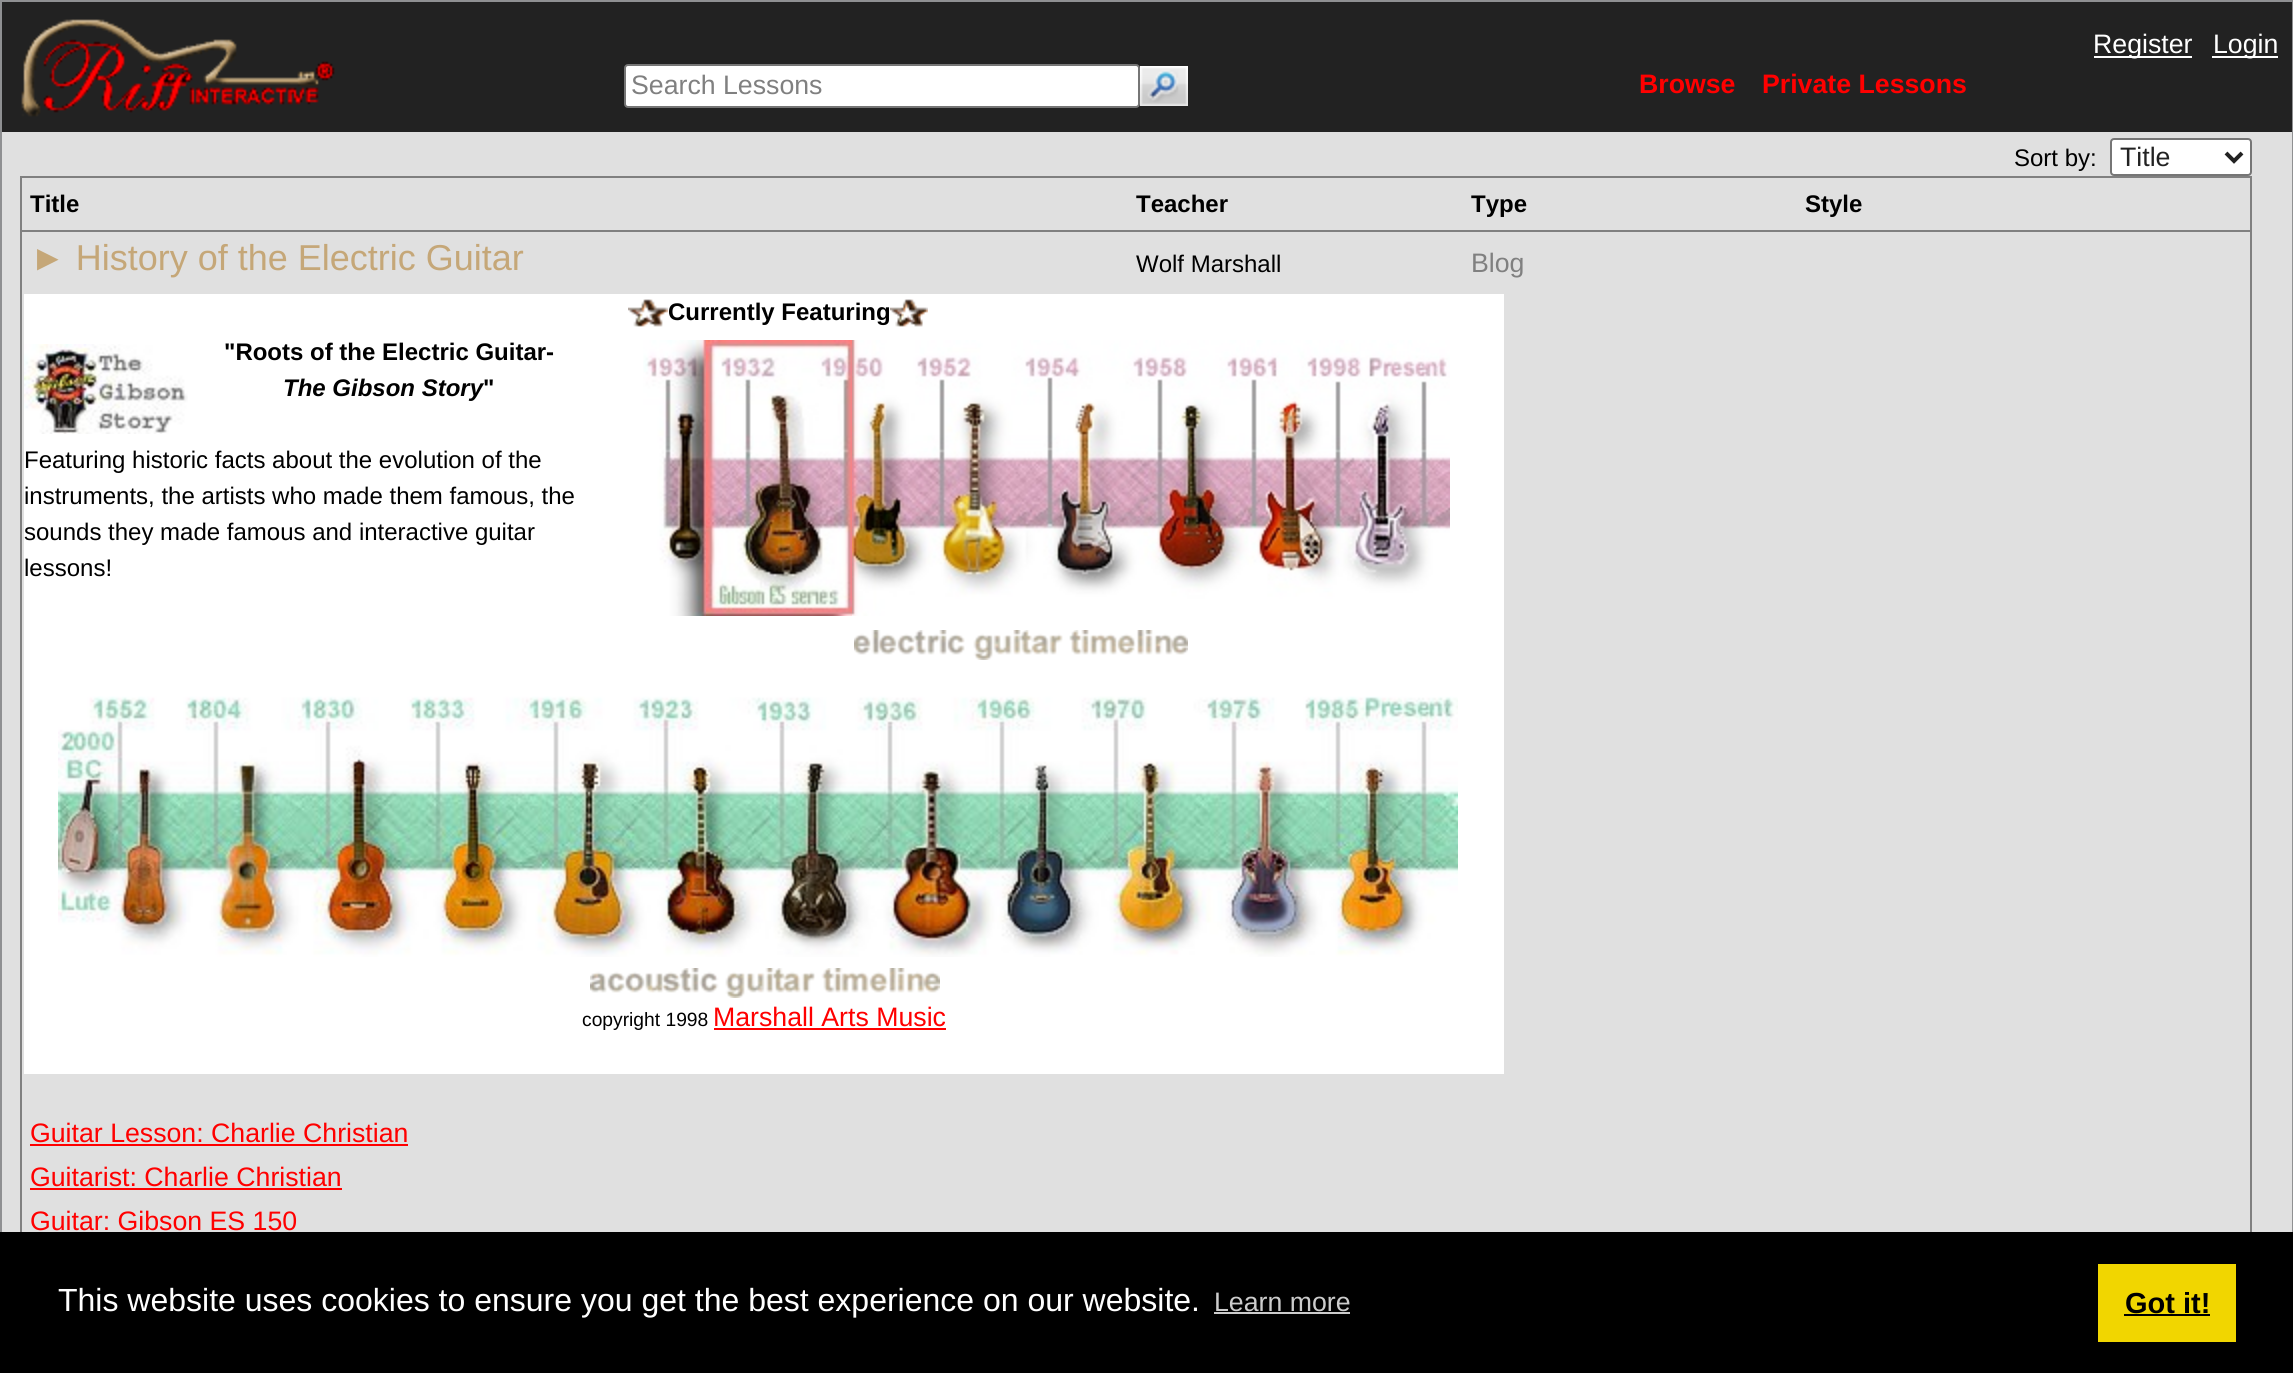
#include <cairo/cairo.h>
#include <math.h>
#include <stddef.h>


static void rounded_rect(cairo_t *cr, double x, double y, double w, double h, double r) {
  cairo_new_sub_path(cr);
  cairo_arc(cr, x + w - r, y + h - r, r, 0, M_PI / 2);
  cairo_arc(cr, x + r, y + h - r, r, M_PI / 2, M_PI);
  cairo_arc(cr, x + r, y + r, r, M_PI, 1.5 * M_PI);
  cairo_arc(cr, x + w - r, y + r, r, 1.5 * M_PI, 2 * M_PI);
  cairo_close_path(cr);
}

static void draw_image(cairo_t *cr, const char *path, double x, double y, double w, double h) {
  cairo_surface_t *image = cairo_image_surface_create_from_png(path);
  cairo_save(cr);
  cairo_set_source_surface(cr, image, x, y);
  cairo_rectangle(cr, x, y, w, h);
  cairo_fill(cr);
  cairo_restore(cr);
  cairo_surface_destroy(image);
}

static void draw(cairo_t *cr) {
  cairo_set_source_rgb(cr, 224 / 255.0, 224 / 255.0, 224 / 255.0);
  cairo_paint(cr);
  cairo_rectangle(cr, 1, 1, 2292, 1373);
  cairo_set_source_rgb(cr, 143 / 255.0, 144 / 255.0, 146 / 255.0);
  cairo_stroke(cr);
  cairo_set_source_rgb(cr, 34 / 255.0, 34 / 255.0, 34 / 255.0);
  cairo_rectangle(cr, 2, 2, 2290, 130);
  cairo_fill(cr);
  draw_image(cr, "images/1.png", 21, 19, 314, 98);
  cairo_set_source_rgb(cr, 1, 1, 1);
  cairo_rectangle(cr, 2094, 56, 98, 2);
  cairo_fill(cr);
  cairo_rectangle(cr, 2212, 56, 66, 2);
  cairo_fill(cr);
  rounded_rect(cr, 625, 65, 514, 42, 3);
  cairo_fill_preserve(cr);
  cairo_set_source_rgb(cr, 118 / 255.0, 118 / 255.0, 118 / 255.0);
  cairo_stroke(cr);
  draw_image(cr, "images/2.png", 1140, 66, 48, 40);
  cairo_set_source_rgb(cr, 1, 1, 1);
  rounded_rect(cr, 2111, 139, 140, 36, 3);
  cairo_fill_preserve(cr);
  cairo_set_source_rgb(cr, 118 / 255.0, 118 / 255.0, 118 / 255.0);
  cairo_stroke(cr);
  cairo_new_path(cr);
  cairo_move_to(cr, 2226, 153);
  cairo_line_to(cr, 2234, 161);
  cairo_line_to(cr, 2242, 153);
  cairo_set_source_rgb(cr, 34 / 255.0, 34 / 255.0, 34 / 255.0);
  cairo_set_line_width(cr, 4);
  cairo_stroke(cr);
  cairo_set_source_rgb(cr, 128 / 255.0, 128 / 255.0, 128 / 255.0);
  cairo_rectangle(cr, 20, 176, 2232, 2);
  cairo_fill(cr);
  cairo_rectangle(cr, 2250, 176, 2, 1056);
  cairo_fill(cr);
  cairo_rectangle(cr, 20, 176, 2, 1056);
  cairo_fill(cr);
  cairo_rectangle(cr, 20, 230, 2232, 2);
  cairo_fill(cr);
  cairo_set_source_rgb(cr, 1, 1, 1);
  cairo_rectangle(cr, 24, 294, 1480, 780);
  cairo_fill(cr);
  draw_image(cr, "images/3.png", 628, 299, 40, 28);
  draw_image(cr, "images/4.png", 890, 299, 38, 28);
  draw_image(cr, "images/5.png", 24, 344, 164, 90);
  draw_image(cr, "images/6.png", 643, 340, 63, 276);
  draw_image(cr, "images/7.png", 706, 340, 146, 276);
  draw_image(cr, "images/8.png", 852, 340, 598, 276);
  draw_image(cr, "images/9.png", 854, 630, 334, 30);
  draw_image(cr, "images/10.png", 58, 696, 1400, 261);
  draw_image(cr, "images/11.png", 590, 968, 350, 30);
  cairo_set_source_rgb(cr, 1, 0, 0);
  cairo_rectangle(cr, 714, 1028, 232, 2);
  cairo_fill(cr);
  cairo_rectangle(cr, 30, 1144, 378, 2);
  cairo_fill(cr);
  cairo_rectangle(cr, 30, 1188, 312, 2);
  cairo_fill(cr);
  cairo_set_source_rgb(cr, 0, 0, 0);
  cairo_rectangle(cr, 0, 1232, 2293, 141);
  cairo_fill(cr);
  cairo_set_source_rgb(cr, 204 / 255.0, 204 / 255.0, 204 / 255.0);
  cairo_rectangle(cr, 1214, 1312, 136, 2);
  cairo_fill(cr);
  cairo_set_source_rgb(cr, 241 / 255.0, 214 / 255.0, 0);
  cairo_rectangle(cr, 2098, 1264, 138, 78);
  cairo_fill(cr);
  cairo_set_source_rgb(cr, 0, 0, 0);
  cairo_rectangle(cr, 2124, 1314, 86, 2);
  cairo_fill(cr);
  cairo_select_font_face(cr, "Liberation Sans", CAIRO_FONT_SLANT_NORMAL, CAIRO_FONT_WEIGHT_NORMAL);
  cairo_set_font_size(cr, 26.7);
  cairo_set_source_rgb(cr, 1, 1, 1);
  cairo_move_to(cr, 2093, 53);
  cairo_show_text(cr, "Register");
  cairo_move_to(cr, 2213, 53);
  cairo_show_text(cr, "Login");
  cairo_set_source_rgb(cr, 128 / 255.0, 128 / 255.0, 128 / 255.0);
  cairo_move_to(cr, 631, 94);
  cairo_show_text(cr, "Search Lessons");
  cairo_select_font_face(cr, "Liberation Sans", CAIRO_FONT_SLANT_NORMAL, CAIRO_FONT_WEIGHT_BOLD);
  cairo_set_source_rgb(cr, 1, 0, 0);
  cairo_move_to(cr, 1639, 93);
  cairo_show_text(cr, "Browse");
  cairo_move_to(cr, 1762, 93);
  cairo_show_text(cr, "Private Lessons");
  cairo_select_font_face(cr, "Liberation Sans", CAIRO_FONT_SLANT_NORMAL, CAIRO_FONT_WEIGHT_NORMAL);
  cairo_set_font_size(cr, 24);
  cairo_set_source_rgb(cr, 0, 0, 0);
  cairo_move_to(cr, 2014, 166);
  cairo_show_text(cr, "Sort by:");
  cairo_set_font_size(cr, 26.7);
  cairo_set_source_rgb(cr, 34 / 255.0, 34 / 255.0, 34 / 255.0);
  cairo_move_to(cr, 2120, 166);
  cairo_show_text(cr, "Title");
  cairo_select_font_face(cr, "Liberation Sans", CAIRO_FONT_SLANT_NORMAL, CAIRO_FONT_WEIGHT_BOLD);
  cairo_set_font_size(cr, 24);
  cairo_set_source_rgb(cr, 0, 0, 0);
  cairo_move_to(cr, 30, 212);
  cairo_show_text(cr, "Title");
  cairo_move_to(cr, 1136, 212);
  cairo_show_text(cr, "Teacher");
  cairo_move_to(cr, 1471, 212);
  cairo_show_text(cr, "Type");
  cairo_move_to(cr, 1805, 212);
  cairo_show_text(cr, "Style");
  cairo_select_font_face(cr, "Liberation Sans", CAIRO_FONT_SLANT_NORMAL, CAIRO_FONT_WEIGHT_NORMAL);
  cairo_set_font_size(cr, 36);
  cairo_set_source_rgb(cr, 197 / 255.0, 167 / 255.0, 120 / 255.0);
  cairo_move_to(cr, 30, 270);
  cairo_show_text(cr, "► History of the Electric Guitar");
  cairo_set_font_size(cr, 24);
  cairo_set_source_rgb(cr, 0, 0, 0);
  cairo_move_to(cr, 1136, 272);
  cairo_show_text(cr, "Wolf Marshall");
  cairo_set_font_size(cr, 26.7);
  cairo_set_source_rgb(cr, 128 / 255.0, 128 / 255.0, 128 / 255.0);
  cairo_move_to(cr, 1471, 272);
  cairo_show_text(cr, "Blog");
  cairo_select_font_face(cr, "Liberation Sans", CAIRO_FONT_SLANT_NORMAL, CAIRO_FONT_WEIGHT_BOLD);
  cairo_set_font_size(cr, 24);
  cairo_set_source_rgb(cr, 0, 0, 0);
  cairo_move_to(cr, 668, 320);
  cairo_show_text(cr, "Currently Featuring");
  cairo_move_to(cr, 224, 360);
  cairo_show_text(cr, "\"Roots of the Electric Guitar-");
  cairo_select_font_face(cr, "Liberation Sans", CAIRO_FONT_SLANT_ITALIC, CAIRO_FONT_WEIGHT_BOLD);
  cairo_move_to(cr, 283, 396);
  cairo_show_text(cr, "The Gibson Story");
  cairo_select_font_face(cr, "Liberation Sans", CAIRO_FONT_SLANT_NORMAL, CAIRO_FONT_WEIGHT_BOLD);
  cairo_move_to(cr, 483, 396);
  cairo_show_text(cr, "\"");
  cairo_select_font_face(cr, "Liberation Sans", CAIRO_FONT_SLANT_NORMAL, CAIRO_FONT_WEIGHT_NORMAL);
  cairo_move_to(cr, 24, 468);
  cairo_show_text(cr, "Featuring historic facts about the evolution of the");
  cairo_move_to(cr, 24, 504);
  cairo_show_text(cr, "instruments, the artists who made them famous, the");
  cairo_move_to(cr, 24, 540);
  cairo_show_text(cr, "sounds they made famous and interactive guitar");
  cairo_move_to(cr, 24, 576);
  cairo_show_text(cr, "lessons!");
  cairo_set_font_size(cr, 19.25);
  cairo_move_to(cr, 582, 1026);
  cairo_show_text(cr, "copyright 1998");
  cairo_set_font_size(cr, 26.7);
  cairo_set_source_rgb(cr, 1, 0, 0);
  cairo_move_to(cr, 713, 1026);
  cairo_show_text(cr, "Marshall Arts Music");
  cairo_move_to(cr, 30, 1142);
  cairo_show_text(cr, "Guitar Lesson: Charlie Christian");
  cairo_move_to(cr, 30, 1186);
  cairo_show_text(cr, "Guitarist: Charlie Christian");
  cairo_move_to(cr, 30, 1230);
  cairo_show_text(cr, "Guitar: Gibson ES 150");
  cairo_set_font_size(cr, 32);
  cairo_set_source_rgb(cr, 1, 1, 1);
  cairo_move_to(cr, 58, 1311);
  cairo_show_text(cr, "This website uses cookies to ensure you get the best experience on our website.");
  cairo_set_font_size(cr, 26.7);
  cairo_set_source_rgb(cr, 204 / 255.0, 204 / 255.0, 204 / 255.0);
  cairo_move_to(cr, 1214, 1311);
  cairo_show_text(cr, "Learn more");
  cairo_select_font_face(cr, "Liberation Sans", CAIRO_FONT_SLANT_NORMAL, CAIRO_FONT_WEIGHT_BOLD);
  cairo_set_font_size(cr, 29);
  cairo_set_source_rgb(cr, 0, 0, 0);
  cairo_move_to(cr, 2125, 1313);
  cairo_show_text(cr, "Got it!");
}

int main(void) {
  cairo_surface_t *surface = cairo_image_surface_create(CAIRO_FORMAT_RGB24, 2293, 1373);
  cairo_t *cr = cairo_create(surface);
  cairo_font_options_t *options = cairo_font_options_create();
  cairo_font_options_set_hint_metrics(options, CAIRO_HINT_METRICS_OFF);
  cairo_font_options_set_hint_style(options, CAIRO_HINT_STYLE_NONE);
  cairo_set_font_options(cr, options);
  cairo_set_miter_limit(cr, 4);
  draw(cr);
  cairo_surface_write_to_png(surface, "out.png");
  cairo_font_options_destroy(options);
  cairo_destroy(cr);
  cairo_surface_destroy(surface);
  return 0;
}
